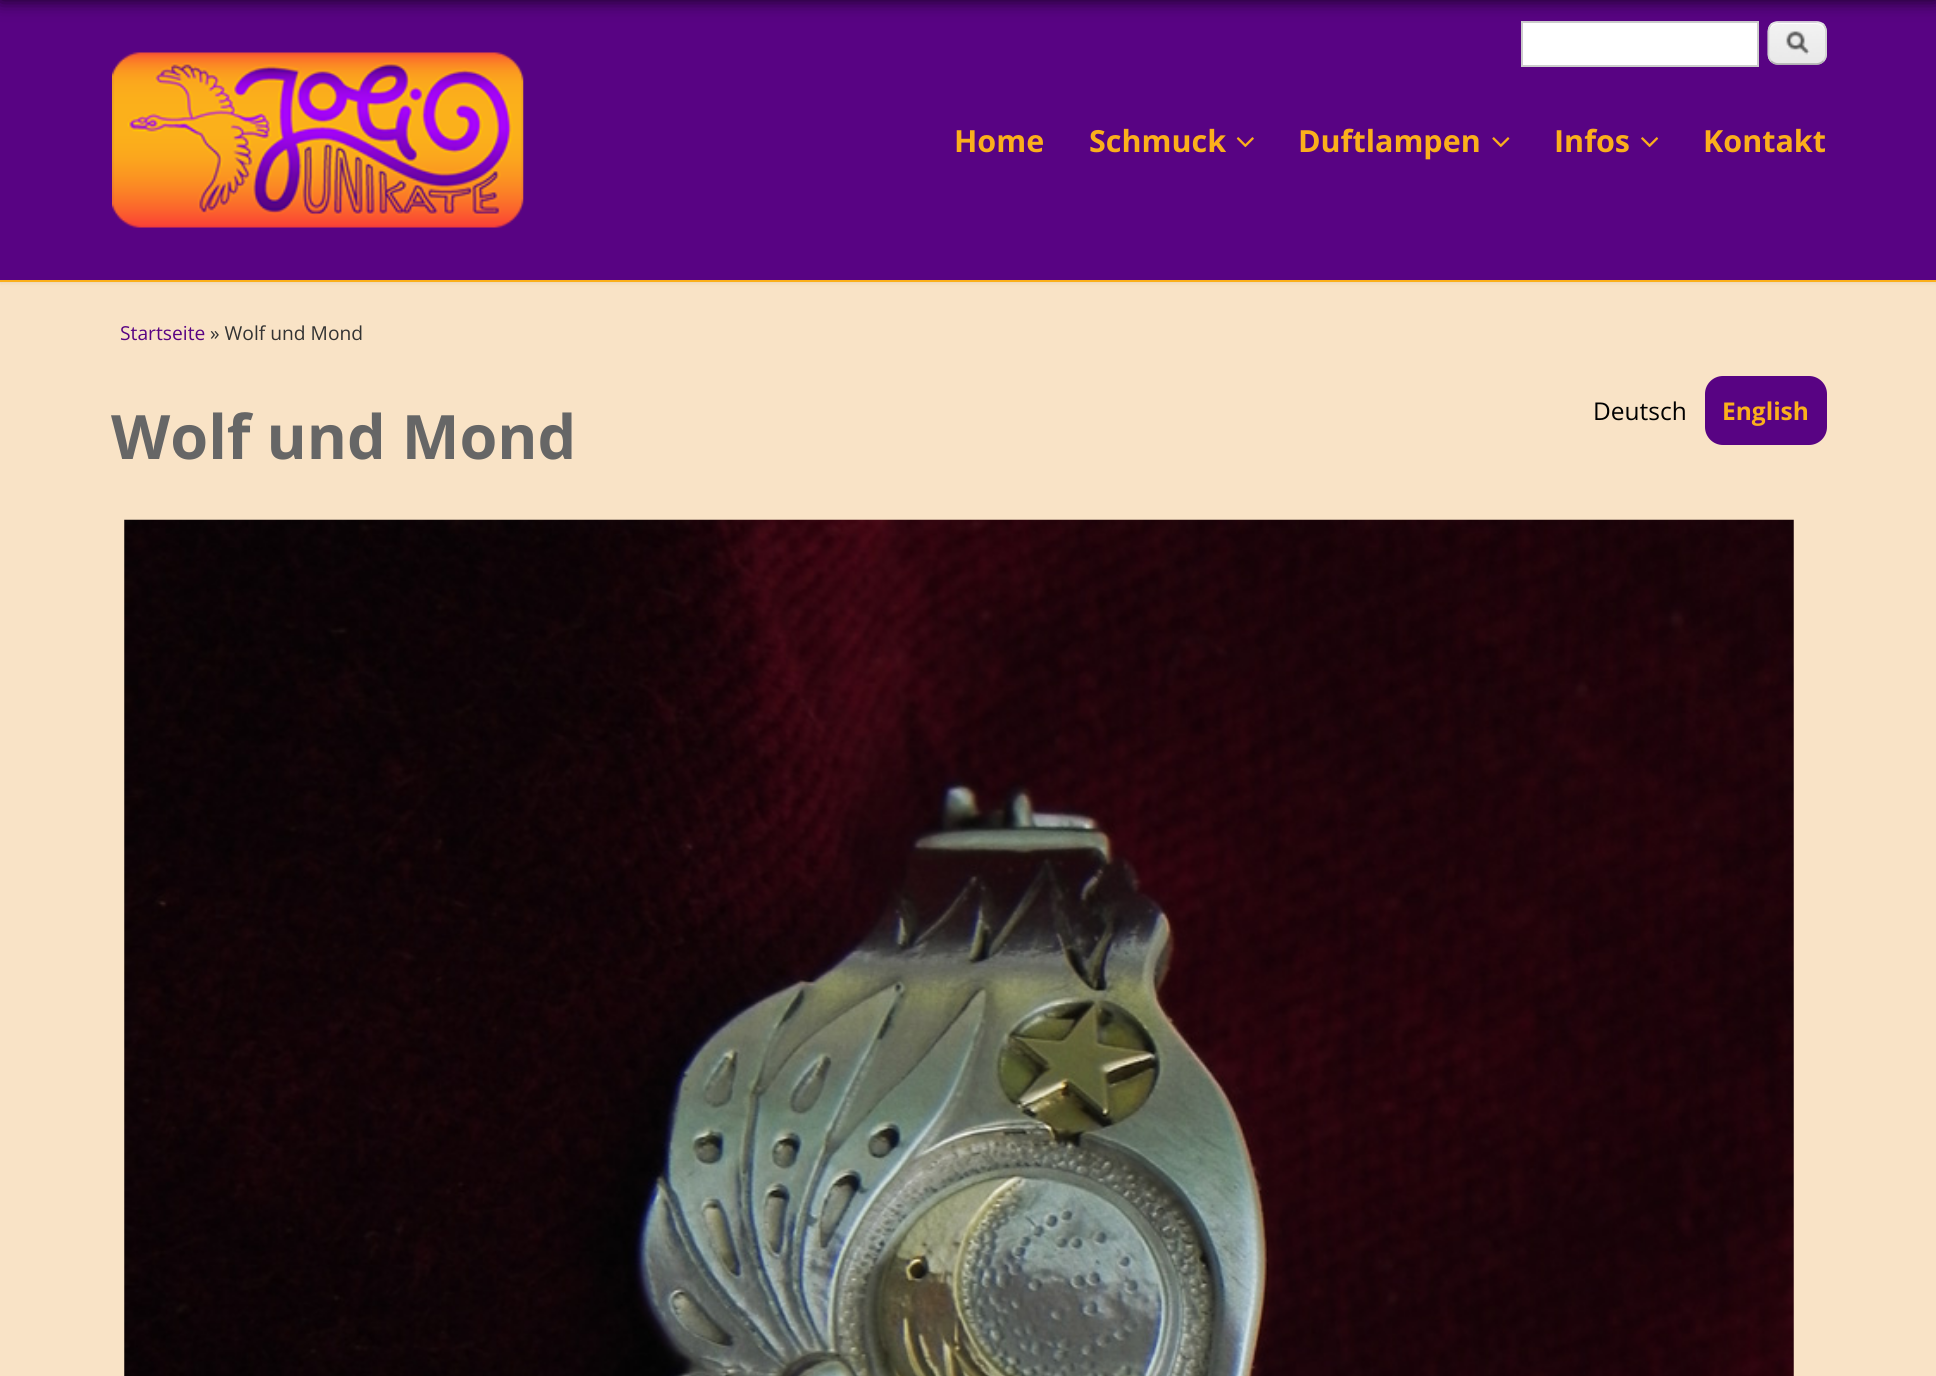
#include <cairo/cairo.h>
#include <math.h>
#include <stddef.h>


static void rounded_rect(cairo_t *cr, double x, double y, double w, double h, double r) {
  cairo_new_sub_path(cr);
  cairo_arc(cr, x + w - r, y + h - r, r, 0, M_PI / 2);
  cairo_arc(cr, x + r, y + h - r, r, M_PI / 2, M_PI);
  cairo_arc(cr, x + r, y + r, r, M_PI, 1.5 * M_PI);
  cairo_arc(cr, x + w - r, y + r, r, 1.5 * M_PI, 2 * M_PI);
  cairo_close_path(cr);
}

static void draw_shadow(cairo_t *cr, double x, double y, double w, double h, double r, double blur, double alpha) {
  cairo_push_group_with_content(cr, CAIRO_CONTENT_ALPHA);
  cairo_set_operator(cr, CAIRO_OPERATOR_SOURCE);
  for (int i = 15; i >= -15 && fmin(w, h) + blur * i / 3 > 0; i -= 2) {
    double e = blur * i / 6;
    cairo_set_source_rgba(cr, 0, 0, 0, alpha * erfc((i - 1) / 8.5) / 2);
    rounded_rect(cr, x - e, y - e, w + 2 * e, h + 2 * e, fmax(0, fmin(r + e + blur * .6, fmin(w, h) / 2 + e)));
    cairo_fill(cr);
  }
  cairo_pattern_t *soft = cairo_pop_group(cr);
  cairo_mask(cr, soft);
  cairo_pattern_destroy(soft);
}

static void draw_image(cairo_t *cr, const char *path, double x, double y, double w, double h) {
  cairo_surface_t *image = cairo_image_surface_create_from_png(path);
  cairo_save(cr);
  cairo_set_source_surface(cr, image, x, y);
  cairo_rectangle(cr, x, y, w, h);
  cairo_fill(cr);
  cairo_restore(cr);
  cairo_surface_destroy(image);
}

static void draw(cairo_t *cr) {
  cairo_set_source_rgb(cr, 249 / 255.0, 227 / 255.0, 198 / 255.0);
  cairo_paint(cr);
  cairo_set_source_rgb(cr, 0, 0, 0);
  draw_shadow(cr, 0, 0, 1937, 282, 0, 2.5, 0.1);
  cairo_set_source_rgb(cr, 88 / 255.0, 3 / 255.0, 131 / 255.0);
  cairo_rectangle(cr, 0, 0, 1936, 280);
  cairo_fill(cr);
  cairo_set_source_rgb(cr, 1, 1, 1);
  cairo_rectangle(cr, 1522, 22, 236, 44);
  cairo_fill_preserve(cr);
  cairo_set_source_rgb(cr, 204 / 255.0, 204 / 255.0, 204 / 255.0);
  cairo_stroke(cr);
  draw_image(cr, "images/1.png", 1767, 22, 60, 43);
  cairo_set_source_rgb(cr, 1, 1, 1);
  cairo_new_path(cr);
  cairo_move_to(cr, 1778, 24);
  cairo_line_to(cr, 1816, 24);
  cairo_curve_to(cr, 1821, 24, 1825, 28, 1825, 33);
  cairo_curve_to(cr, 1825, 23, 1818, 23, 1810, 23);
  cairo_line_to(cr, 1784, 23);
  cairo_curve_to(cr, 1776, 23, 1769, 23, 1769, 33);
  cairo_curve_to(cr, 1769, 28, 1773, 24, 1778, 24);
  cairo_close_path(cr);
  cairo_fill(cr);
  cairo_new_path(cr);
  cairo_move_to(cr, 1771, 24.5);
  cairo_curve_to(cr, 1773, 23, 1775.5, 22, 1778, 22);
  cairo_line_to(cr, 1816.5, 22);
  cairo_curve_to(cr, 1819, 22, 1821.5, 23, 1823.5, 24.5);
  cairo_set_source_rgb(cr, 228 / 255.0, 228 / 255.0, 228 / 255.0);
  cairo_set_line_width(cr, 1.8);
  cairo_stroke(cr);
  cairo_new_path(cr);
  cairo_move_to(cr, 1823.5, 24.5);
  cairo_curve_to(cr, 1825, 26.5, 1826, 29, 1826, 31.5);
  cairo_line_to(cr, 1826, 54);
  cairo_curve_to(cr, 1826, 57, 1825, 59.5, 1823.5, 61);
  cairo_set_source_rgb(cr, 210 / 255.0, 210 / 255.0, 210 / 255.0);
  cairo_stroke(cr);
  cairo_new_path(cr);
  cairo_move_to(cr, 1823.5, 61);
  cairo_curve_to(cr, 1821.5, 63, 1819, 64, 1816.5, 64);
  cairo_line_to(cr, 1778, 64);
  cairo_curve_to(cr, 1775.5, 64, 1773, 63, 1771, 61);
  cairo_set_source_rgb(cr, 180 / 255.0, 180 / 255.0, 180 / 255.0);
  cairo_stroke(cr);
  cairo_new_path(cr);
  cairo_move_to(cr, 1771, 61);
  cairo_curve_to(cr, 1769.5, 59.5, 1768.5, 57, 1768.5, 54.5);
  cairo_line_to(cr, 1768.5, 31.5);
  cairo_curve_to(cr, 1768.5, 29, 1769.5, 26.5, 1771, 24.5);
  cairo_set_source_rgb(cr, 210 / 255.0, 210 / 255.0, 210 / 255.0);
  cairo_stroke(cr);
  cairo_set_source_rgb(cr, 0, 0, 0);
  draw_shadow(cr, 0, -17, 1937, 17, 0, 9, 0.8);
  cairo_set_source_rgb(cr, 251 / 255.0, 175 / 255.0, 27 / 255.0);
  cairo_rectangle(cr, 0, 280, 1936, 2);
  cairo_fill(cr);
  draw_image(cr, "images/2.png", 112, 52, 412, 176);
  draw_image(cr, "images/3.png", 1236, 137, 18, 11);
  draw_image(cr, "images/4.png", 1492, 137, 18, 11);
  draw_image(cr, "images/5.png", 1641, 137, 18, 11);
  draw_image(cr, "images/6.png", 124, 519, 1670, 857);
  cairo_set_source_rgb(cr, 88 / 255.0, 3 / 255.0, 131 / 255.0);
  rounded_rect(cr, 1705, 376, 122, 69, 18);
  cairo_fill(cr);
  cairo_select_font_face(cr, "Open Sans", CAIRO_FONT_SLANT_NORMAL, CAIRO_FONT_WEIGHT_BOLD);
  cairo_set_font_size(cr, 30.5);
  cairo_set_source_rgb(cr, 251 / 255.0, 175 / 255.0, 27 / 255.0);
  cairo_move_to(cr, 954, 152);
  cairo_show_text(cr, "Home");
  cairo_move_to(cr, 1089, 152);
  cairo_show_text(cr, "Schmuck");
  cairo_move_to(cr, 1298, 152);
  cairo_show_text(cr, "Duftlampen");
  cairo_move_to(cr, 1554, 152);
  cairo_show_text(cr, "Infos");
  cairo_move_to(cr, 1703, 152);
  cairo_show_text(cr, "Kontakt");
  cairo_select_font_face(cr, "Open Sans", CAIRO_FONT_SLANT_NORMAL, CAIRO_FONT_WEIGHT_NORMAL);
  cairo_set_font_size(cr, 19.25);
  cairo_set_source_rgb(cr, 88 / 255.0, 3 / 255.0, 131 / 255.0);
  cairo_move_to(cr, 120, 340);
  cairo_show_text(cr, "Startseite");
  cairo_set_source_rgb(cr, 51 / 255.0, 51 / 255.0, 51 / 255.0);
  cairo_move_to(cr, 210, 340);
  cairo_show_text(cr, "» Wolf und Mond");
  cairo_select_font_face(cr, "Open Sans", CAIRO_FONT_SLANT_NORMAL, CAIRO_FONT_WEIGHT_BOLD);
  cairo_set_font_size(cr, 61.25);
  cairo_set_source_rgb(cr, 102 / 255.0, 102 / 255.0, 102 / 255.0);
  cairo_move_to(cr, 111, 459);
  cairo_show_text(cr, "Wolf und Mond");
  cairo_select_font_face(cr, "Open Sans", CAIRO_FONT_SLANT_NORMAL, CAIRO_FONT_WEIGHT_NORMAL);
  cairo_set_font_size(cr, 24.5);
  cairo_set_source_rgb(cr, 0, 0, 0);
  cairo_move_to(cr, 1593, 420);
  cairo_show_text(cr, "Deutsch");
  cairo_select_font_face(cr, "Open Sans", CAIRO_FONT_SLANT_NORMAL, CAIRO_FONT_WEIGHT_BOLD);
  cairo_set_source_rgb(cr, 251 / 255.0, 175 / 255.0, 27 / 255.0);
  cairo_move_to(cr, 1722, 420);
  cairo_show_text(cr, "English");
}

int main(void) {
  cairo_surface_t *surface = cairo_image_surface_create(CAIRO_FORMAT_RGB24, 1936, 1376);
  cairo_t *cr = cairo_create(surface);
  cairo_font_options_t *options = cairo_font_options_create();
  cairo_font_options_set_hint_metrics(options, CAIRO_HINT_METRICS_OFF);
  cairo_font_options_set_hint_style(options, CAIRO_HINT_STYLE_NONE);
  cairo_set_font_options(cr, options);
  cairo_set_miter_limit(cr, 4);
  draw(cr);
  cairo_surface_write_to_png(surface, "out.png");
  cairo_font_options_destroy(options);
  cairo_destroy(cr);
  cairo_surface_destroy(surface);
  return 0;
}
